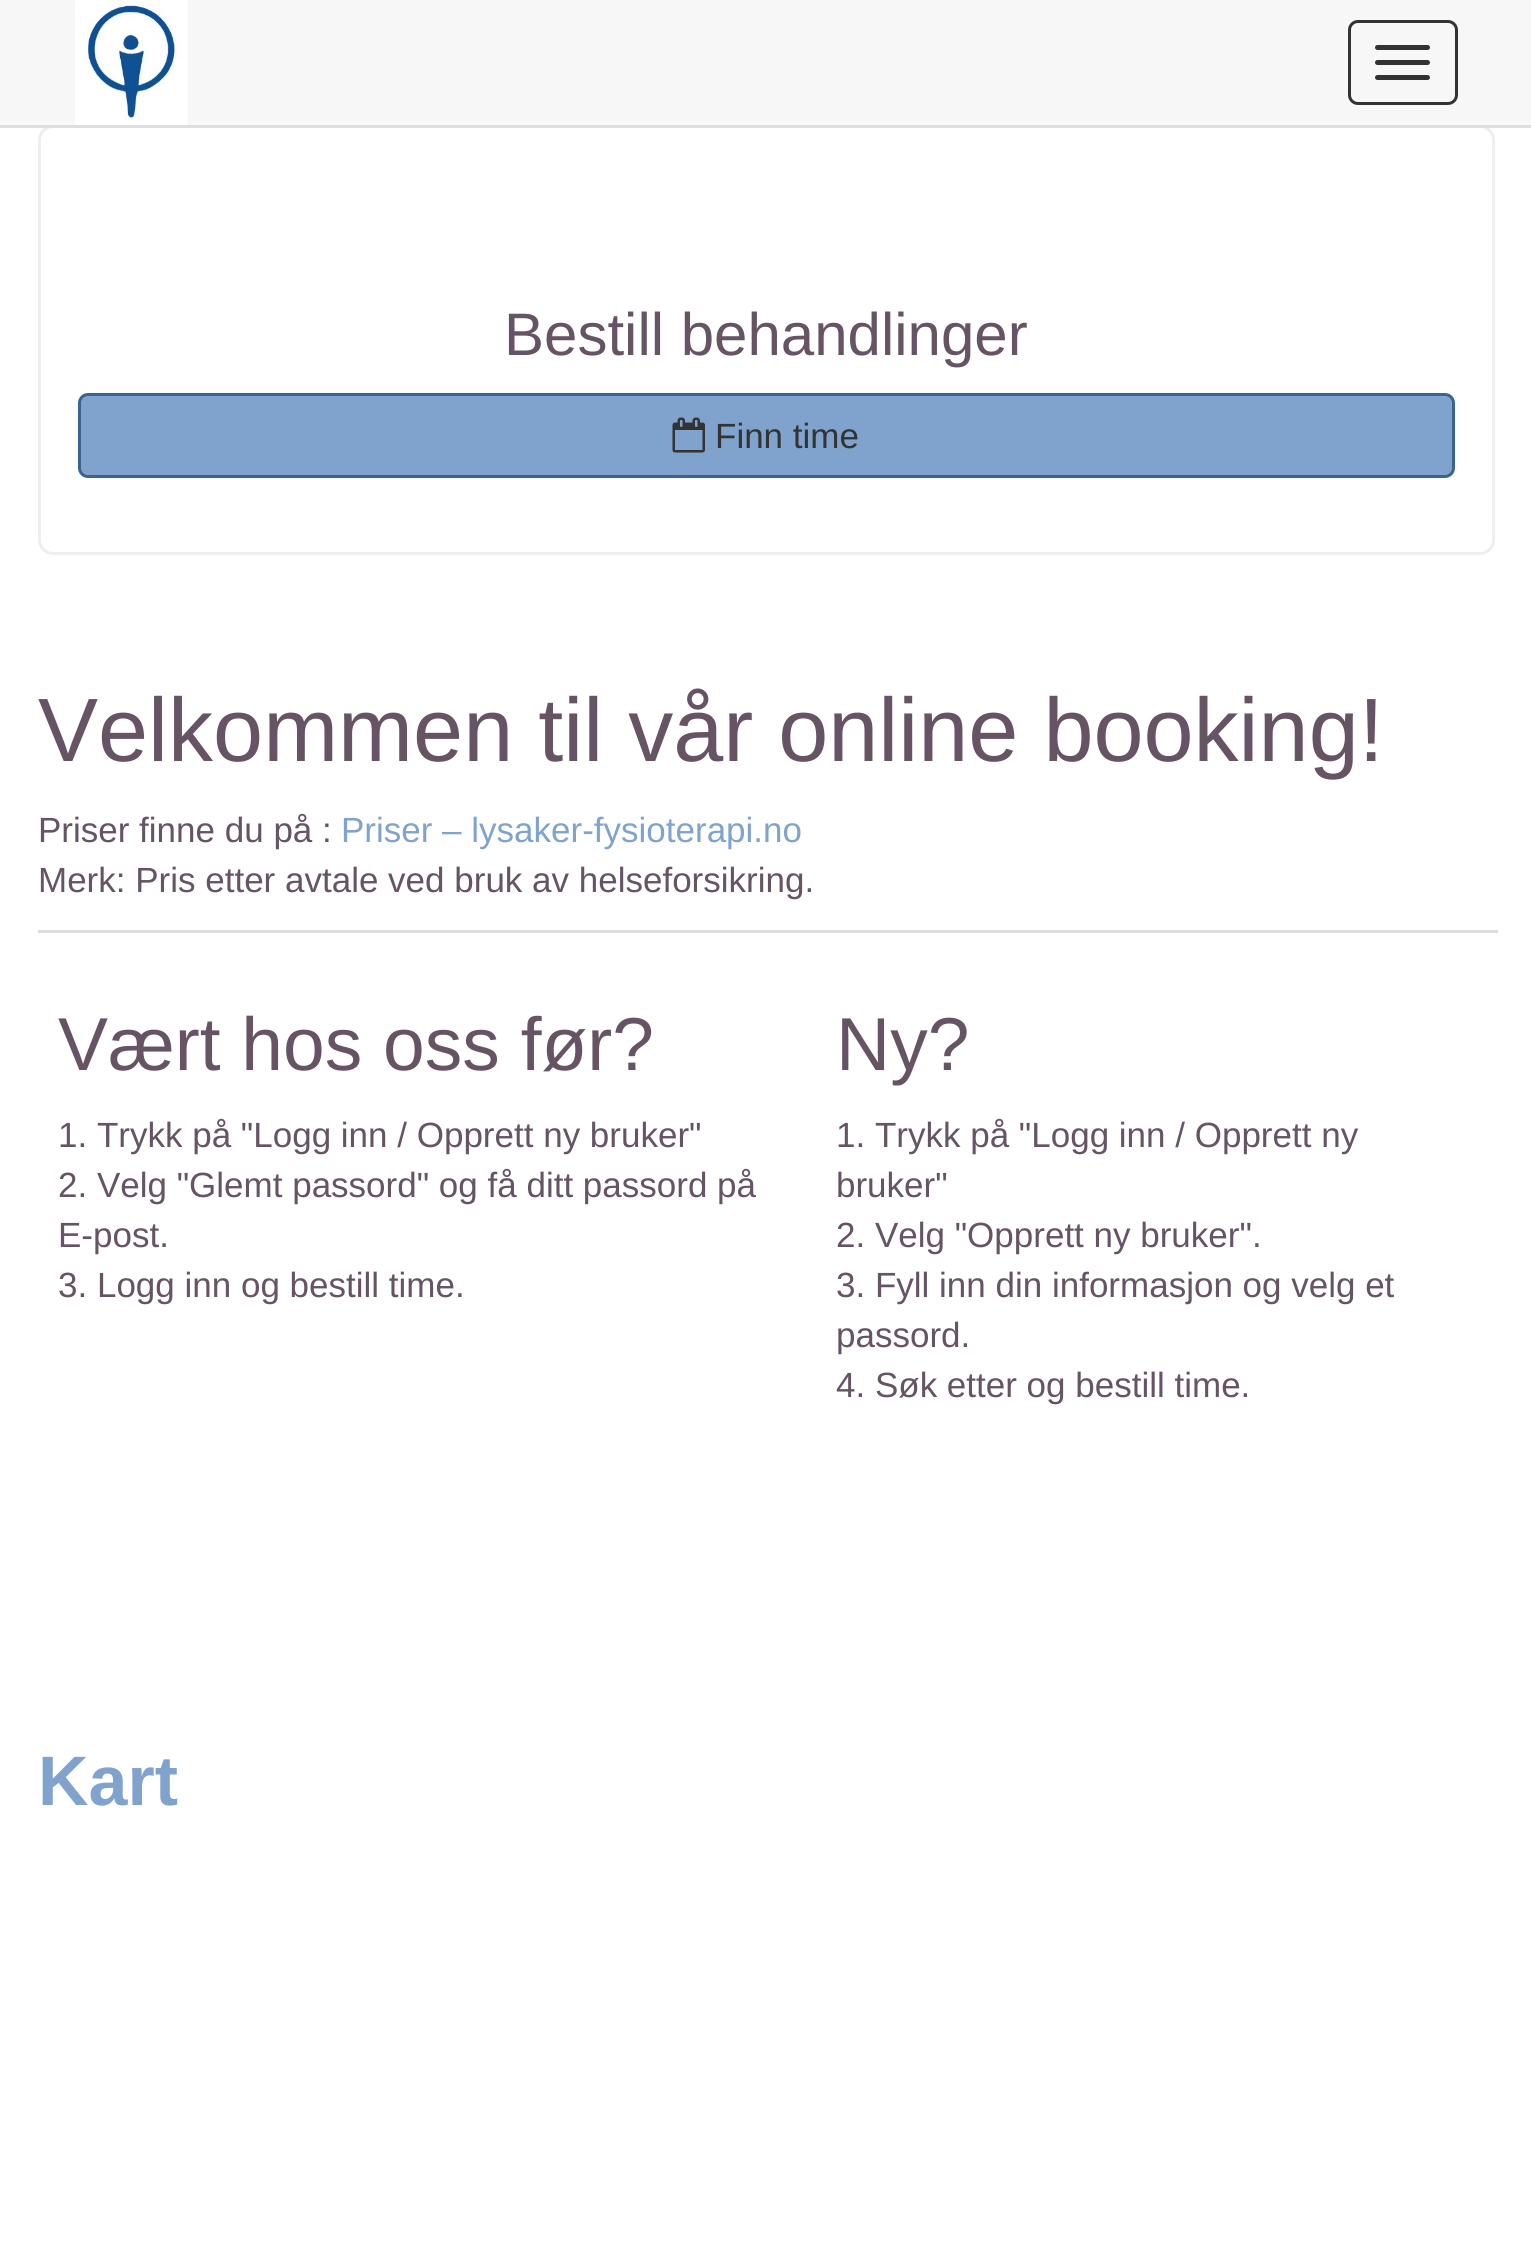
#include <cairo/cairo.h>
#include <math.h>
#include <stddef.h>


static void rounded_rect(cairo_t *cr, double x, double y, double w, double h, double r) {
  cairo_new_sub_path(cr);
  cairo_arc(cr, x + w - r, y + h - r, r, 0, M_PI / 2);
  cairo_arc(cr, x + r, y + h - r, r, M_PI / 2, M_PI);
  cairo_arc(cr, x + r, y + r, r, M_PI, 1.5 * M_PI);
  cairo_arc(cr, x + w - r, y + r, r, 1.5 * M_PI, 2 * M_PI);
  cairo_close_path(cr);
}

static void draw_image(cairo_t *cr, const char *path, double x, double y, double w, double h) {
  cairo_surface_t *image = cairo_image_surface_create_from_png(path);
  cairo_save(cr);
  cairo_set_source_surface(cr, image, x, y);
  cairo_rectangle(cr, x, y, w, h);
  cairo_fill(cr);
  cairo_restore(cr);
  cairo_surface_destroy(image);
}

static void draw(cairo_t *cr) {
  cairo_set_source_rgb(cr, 1, 1, 1);
  cairo_paint(cr);
  cairo_set_source_rgb(cr, 247 / 255.0, 247 / 255.0, 247 / 255.0);
  cairo_rectangle(cr, 0, 0, 1531, 125);
  cairo_fill(cr);
  rounded_rect(cr, 39.5, 126.5, 1454, 427, 13.5);
  cairo_set_source_rgb(cr, 238 / 255.0, 238 / 255.0, 238 / 255.0);
  cairo_set_line_width(cr, 3);
  cairo_stroke(cr);
  cairo_set_source_rgb(cr, 222 / 255.0, 222 / 255.0, 222 / 255.0);
  cairo_rectangle(cr, 0, 125, 1531, 3);
  cairo_fill(cr);
  draw_image(cr, "images/1.png", 75, 0, 113, 125);
  rounded_rect(cr, 1349.5, 21.5, 107, 82, 8.5);
  cairo_set_source_rgb(cr, 51 / 255.0, 51 / 255.0, 51 / 255.0);
  cairo_stroke(cr);
  rounded_rect(cr, 1375, 45, 55, 5, 2.5);
  cairo_fill(cr);
  rounded_rect(cr, 1375, 60, 55, 5, 2.5);
  cairo_fill(cr);
  rounded_rect(cr, 1375, 75, 55, 5, 2.5);
  cairo_fill(cr);
  cairo_set_source_rgb(cr, 127 / 255.0, 163 / 255.0, 204 / 255.0);
  rounded_rect(cr, 79.5, 394.5, 1374, 82, 8.5);
  cairo_fill_preserve(cr);
  cairo_set_source_rgb(cr, 58 / 255.0, 99 / 255.0, 146 / 255.0);
  cairo_stroke(cr);
  draw_image(cr, "images/2.png", 672, 417, 33, 36);
  cairo_set_source_rgb(cr, 221 / 255.0, 221 / 255.0, 221 / 255.0);
  cairo_rectangle(cr, 38, 930, 1460, 3);
  cairo_fill(cr);
  cairo_select_font_face(cr, "Liberation Sans", CAIRO_FONT_SLANT_NORMAL, CAIRO_FONT_WEIGHT_NORMAL);
  cairo_set_font_size(cr, 60);
  cairo_set_source_rgb(cr, 102 / 255.0, 84 / 255.0, 100 / 255.0);
  cairo_move_to(cr, 504, 355);
  cairo_show_text(cr, "Bestill behandlinger");
  cairo_set_font_size(cr, 35);
  cairo_set_source_rgb(cr, 51 / 255.0, 51 / 255.0, 51 / 255.0);
  cairo_move_to(cr, 715, 448);
  cairo_show_text(cr, "Finn time");
  cairo_set_font_size(cr, 90);
  cairo_set_source_rgb(cr, 102 / 255.0, 84 / 255.0, 100 / 255.0);
  cairo_move_to(cr, 38, 761);
  cairo_show_text(cr, "Velkommen til vår online booking!");
  cairo_set_font_size(cr, 35);
  cairo_move_to(cr, 38, 842);
  cairo_show_text(cr, "Priser finne du på :");
  cairo_set_source_rgb(cr, 127 / 255.0, 163 / 255.0, 204 / 255.0);
  cairo_move_to(cr, 341, 842);
  cairo_show_text(cr, "Priser – lysaker-fysioterapi.no");
  cairo_set_source_rgb(cr, 102 / 255.0, 84 / 255.0, 100 / 255.0);
  cairo_move_to(cr, 38, 892);
  cairo_show_text(cr, "Merk: Pris etter avtale ved bruk av helseforsikring.");
  cairo_set_font_size(cr, 75);
  cairo_move_to(cr, 58, 1070);
  cairo_show_text(cr, "Vært hos oss før?");
  cairo_set_font_size(cr, 35);
  cairo_move_to(cr, 58, 1147);
  cairo_show_text(cr, "1. Trykk på \"Logg inn / Opprett ny bruker\"");
  cairo_move_to(cr, 58, 1197);
  cairo_show_text(cr, "2. Velg \"Glemt passord\" og få ditt passord på");
  cairo_move_to(cr, 58, 1247);
  cairo_show_text(cr, "E-post.");
  cairo_move_to(cr, 58, 1297);
  cairo_show_text(cr, "3. Logg inn og bestill time.");
  cairo_set_font_size(cr, 75);
  cairo_move_to(cr, 836, 1070);
  cairo_show_text(cr, "Ny?");
  cairo_set_font_size(cr, 35);
  cairo_move_to(cr, 836, 1147);
  cairo_show_text(cr, "1. Trykk på \"Logg inn / Opprett ny");
  cairo_move_to(cr, 836, 1197);
  cairo_show_text(cr, "bruker\"");
  cairo_move_to(cr, 836, 1247);
  cairo_show_text(cr, "2. Velg \"Opprett ny bruker\".");
  cairo_move_to(cr, 836, 1297);
  cairo_show_text(cr, "3. Fyll inn din informasjon og velg et");
  cairo_move_to(cr, 836, 1347);
  cairo_show_text(cr, "passord.");
  cairo_move_to(cr, 836, 1397);
  cairo_show_text(cr, "4. Søk etter og bestill time.");
  cairo_select_font_face(cr, "Liberation Sans", CAIRO_FONT_SLANT_NORMAL, CAIRO_FONT_WEIGHT_BOLD);
  cairo_set_font_size(cr, 70);
  cairo_set_source_rgb(cr, 127 / 255.0, 163 / 255.0, 204 / 255.0);
  cairo_move_to(cr, 38, 1805);
  cairo_show_text(cr, "Kart");
}

int main(void) {
  cairo_surface_t *surface = cairo_image_surface_create(CAIRO_FORMAT_RGB24, 1531, 2255);
  cairo_t *cr = cairo_create(surface);
  cairo_font_options_t *options = cairo_font_options_create();
  cairo_font_options_set_hint_metrics(options, CAIRO_HINT_METRICS_OFF);
  cairo_font_options_set_hint_style(options, CAIRO_HINT_STYLE_NONE);
  cairo_set_font_options(cr, options);
  cairo_set_miter_limit(cr, 4);
  draw(cr);
  cairo_surface_write_to_png(surface, "out.png");
  cairo_font_options_destroy(options);
  cairo_destroy(cr);
  cairo_surface_destroy(surface);
  return 0;
}
